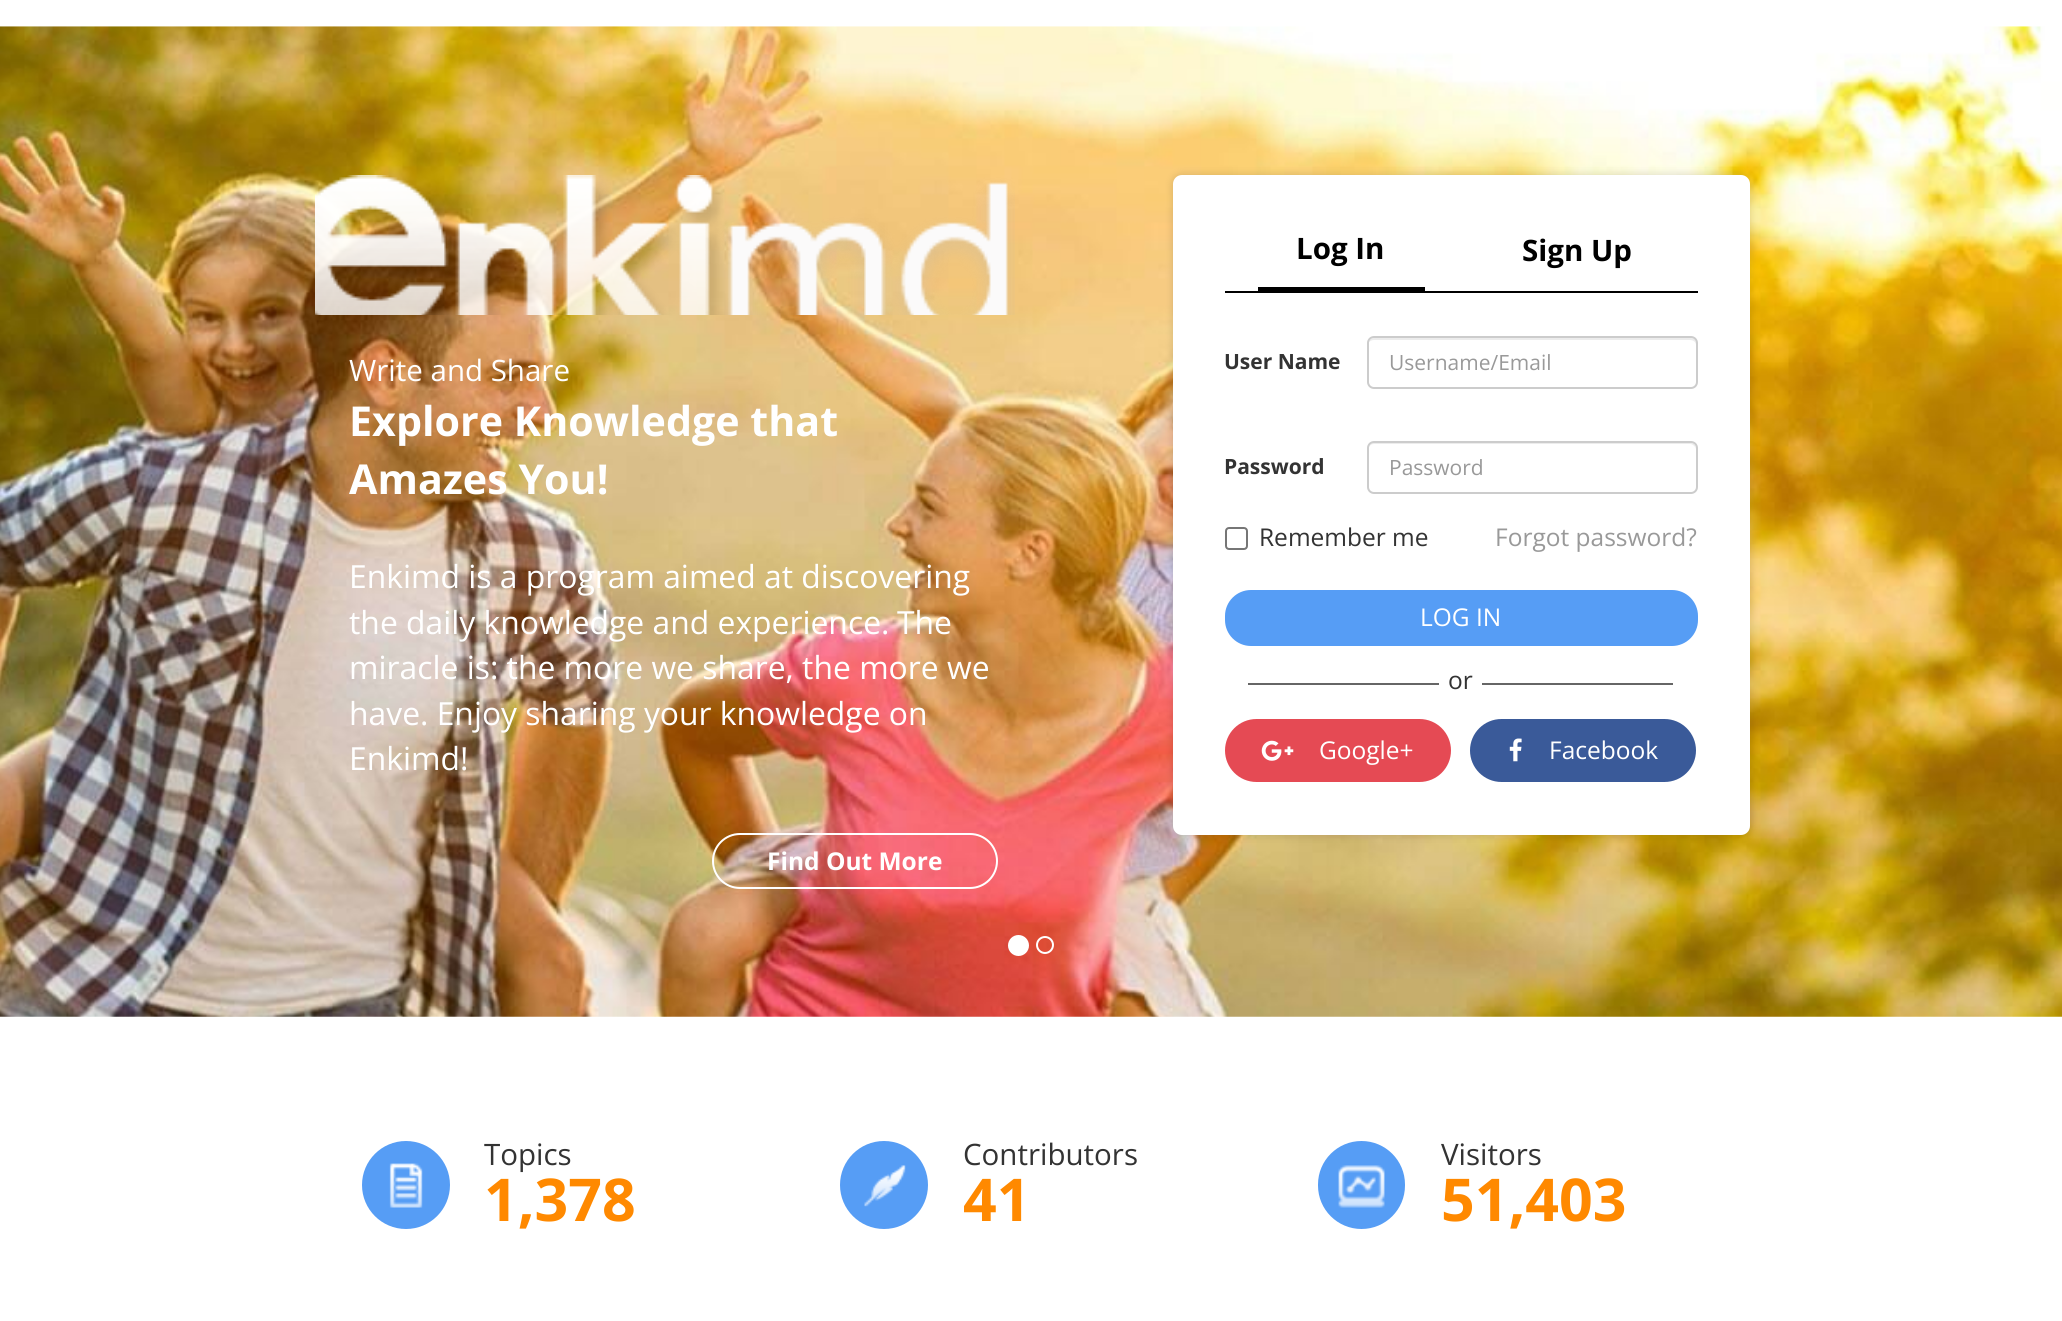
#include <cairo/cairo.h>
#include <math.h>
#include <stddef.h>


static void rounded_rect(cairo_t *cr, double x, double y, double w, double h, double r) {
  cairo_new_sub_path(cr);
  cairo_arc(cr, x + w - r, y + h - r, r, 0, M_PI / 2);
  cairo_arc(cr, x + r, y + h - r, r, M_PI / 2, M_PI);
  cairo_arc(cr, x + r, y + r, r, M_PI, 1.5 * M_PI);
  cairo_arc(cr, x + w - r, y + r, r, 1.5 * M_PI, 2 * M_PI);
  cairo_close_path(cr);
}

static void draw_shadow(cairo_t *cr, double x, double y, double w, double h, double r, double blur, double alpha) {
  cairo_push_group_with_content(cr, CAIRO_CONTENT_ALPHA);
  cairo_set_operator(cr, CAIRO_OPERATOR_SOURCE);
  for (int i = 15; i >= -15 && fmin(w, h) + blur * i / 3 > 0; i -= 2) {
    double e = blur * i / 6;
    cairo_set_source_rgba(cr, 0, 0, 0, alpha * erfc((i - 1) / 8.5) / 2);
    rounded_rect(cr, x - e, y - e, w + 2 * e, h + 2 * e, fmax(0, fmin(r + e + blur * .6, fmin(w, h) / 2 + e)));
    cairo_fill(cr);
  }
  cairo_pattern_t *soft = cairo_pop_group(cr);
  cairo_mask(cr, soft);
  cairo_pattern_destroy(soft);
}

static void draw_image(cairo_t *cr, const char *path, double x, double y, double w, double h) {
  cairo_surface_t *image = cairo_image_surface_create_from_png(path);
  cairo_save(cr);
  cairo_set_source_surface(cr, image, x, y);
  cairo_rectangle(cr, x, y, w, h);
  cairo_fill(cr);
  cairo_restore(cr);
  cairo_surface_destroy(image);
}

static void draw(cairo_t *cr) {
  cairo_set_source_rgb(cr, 1, 1, 1);
  cairo_paint(cr);
  draw_image(cr, "images/1.png", 0, 26, 2062, 991);
  cairo_set_source_rgb(cr, 1, 1, 1);
  cairo_arc(cr, 1018.5, 945.5, 9.5, 0, 2 * M_PI);
  cairo_fill_preserve(cr);
  cairo_stroke(cr);
  cairo_arc(cr, 1045, 945, 8, 0, 2 * M_PI);
  cairo_stroke(cr);
  draw_image(cr, "images/2.png", 315, 175, 700, 140);
  rounded_rect(cr, 713, 834, 284, 54, 27);
  cairo_stroke(cr);
  cairo_set_source_rgb(cr, 0, 0, 0);
  draw_shadow(cr, 1171, 173, 581, 664, 11, 3.5, 0.1);
  cairo_set_source_rgb(cr, 1, 1, 1);
  rounded_rect(cr, 1173, 175, 577, 660, 9);
  cairo_fill(cr);
  cairo_set_source_rgb(cr, 0, 0, 0);
  cairo_rectangle(cr, 1225, 291, 473, 2);
  cairo_fill(cr);
  cairo_rectangle(cr, 1258, 287, 167, 4);
  cairo_fill(cr);
  cairo_set_source_rgb(cr, 236 / 255.0, 236 / 255.0, 236 / 255.0);
  cairo_new_path(cr);
  cairo_move_to(cr, 1374, 340);
  cairo_line_to(cr, 1690, 340);
  cairo_curve_to(cr, 1693, 340, 1696, 342, 1696, 345);
  cairo_line_to(cr, 1696, 343);
  cairo_curve_to(cr, 1696, 340, 1694, 338, 1691, 338);
  cairo_line_to(cr, 1374, 338);
  cairo_curve_to(cr, 1372, 338, 1369, 340, 1369, 342);
  cairo_curve_to(cr, 1370, 341, 1372, 340, 1374, 340);
  cairo_close_path(cr);
  cairo_fill(cr);
  rounded_rect(cr, 1368, 337, 329, 51, 6);
  cairo_set_source_rgb(cr, 204 / 255.0, 204 / 255.0, 204 / 255.0);
  cairo_stroke(cr);
  cairo_set_source_rgb(cr, 236 / 255.0, 236 / 255.0, 236 / 255.0);
  cairo_new_path(cr);
  cairo_move_to(cr, 1374, 444);
  cairo_line_to(cr, 1690, 444);
  cairo_curve_to(cr, 1693, 444, 1696, 447, 1696, 450);
  cairo_curve_to(cr, 1696, 447, 1695, 443, 1691, 443);
  cairo_line_to(cr, 1373, 443);
  cairo_curve_to(cr, 1371, 443, 1370, 445, 1369, 447);
  cairo_curve_to(cr, 1370, 445, 1372, 444, 1374, 444);
  cairo_close_path(cr);
  cairo_fill(cr);
  rounded_rect(cr, 1368, 442, 329, 51, 6);
  cairo_set_source_rgb(cr, 204 / 255.0, 204 / 255.0, 204 / 255.0);
  cairo_stroke(cr);
  rounded_rect(cr, 1226, 528, 21, 21, 3);
  cairo_set_source_rgb(cr, 118 / 255.0, 118 / 255.0, 118 / 255.0);
  cairo_stroke(cr);
  cairo_set_source_rgb(cr, 86 / 255.0, 157 / 255.0, 245 / 255.0);
  rounded_rect(cr, 1225, 590, 473, 56, 26);
  cairo_fill(cr);
  cairo_set_source_rgb(cr, 102 / 255.0, 102 / 255.0, 102 / 255.0);
  cairo_rectangle(cr, 1248, 683, 425, 2);
  cairo_fill(cr);
  cairo_set_source_rgb(cr, 1, 1, 1);
  cairo_rectangle(cr, 1439, 683, 43, 2);
  cairo_fill(cr);
  cairo_set_source_rgb(cr, 229 / 255.0, 74 / 255.0, 84 / 255.0);
  rounded_rect(cr, 1225, 719, 226, 63, 31.5);
  cairo_fill(cr);
  draw_image(cr, "images/3.png", 1261, 740, 33, 21);
  cairo_set_source_rgb(cr, 58 / 255.0, 90 / 255.0, 153 / 255.0);
  rounded_rect(cr, 1470, 719, 226, 63, 31.5);
  cairo_fill(cr);
  draw_image(cr, "images/4.png", 1509, 738, 13, 24);
  cairo_set_source_rgb(cr, 86 / 255.0, 157 / 255.0, 245 / 255.0);
  cairo_arc(cr, 406, 1185, 44, 0, 2 * M_PI);
  cairo_fill(cr);
  draw_image(cr, "images/5.png", 389, 1163, 34, 45);
  cairo_arc(cr, 884, 1185, 44, 0, 2 * M_PI);
  cairo_fill(cr);
  draw_image(cr, "images/6.png", 864, 1165, 42, 42);
  rounded_rect(cr, 1318, 1141, 87, 88, 43.5);
  cairo_fill(cr);
  draw_image(cr, "images/7.png", 1338, 1165, 47, 43);
  cairo_select_font_face(cr, "Open Sans", CAIRO_FONT_SLANT_NORMAL, CAIRO_FONT_WEIGHT_NORMAL);
  cairo_set_font_size(cr, 29.5);
  cairo_set_source_rgb(cr, 1, 1, 1);
  cairo_move_to(cr, 349, 381);
  cairo_show_text(cr, "Write and Share");
  cairo_select_font_face(cr, "Open Sans", CAIRO_FONT_SLANT_NORMAL, CAIRO_FONT_WEIGHT_BOLD);
  cairo_set_font_size(cr, 41.2);
  cairo_move_to(cr, 349, 436);
  cairo_show_text(cr, "Explore Knowledge that");
  cairo_move_to(cr, 349, 494);
  cairo_show_text(cr, "Amazes You!");
  cairo_select_font_face(cr, "Open Sans", CAIRO_FONT_SLANT_NORMAL, CAIRO_FONT_WEIGHT_NORMAL);
  cairo_set_font_size(cr, 31.85);
  cairo_move_to(cr, 349, 588);
  cairo_show_text(cr, "Enkimd is a program aimed at discovering");
  cairo_move_to(cr, 349, 634);
  cairo_show_text(cr, "the daily knowledge and experience.");
  cairo_move_to(cr, 897, 634);
  cairo_show_text(cr, "The");
  cairo_move_to(cr, 349, 679);
  cairo_show_text(cr, "miracle is: the more we share, the more we");
  cairo_move_to(cr, 349, 725);
  cairo_show_text(cr, "have. Enjoy sharing your knowledge on");
  cairo_move_to(cr, 349, 770);
  cairo_show_text(cr, "Enkimd!");
  cairo_select_font_face(cr, "Open Sans", CAIRO_FONT_SLANT_NORMAL, CAIRO_FONT_WEIGHT_BOLD);
  cairo_set_font_size(cr, 24.5);
  cairo_move_to(cr, 767, 870);
  cairo_show_text(cr, "Find Out More");
  cairo_set_font_size(cr, 29.5);
  cairo_set_source_rgb(cr, 0, 0, 0);
  cairo_move_to(cr, 1296, 259);
  cairo_show_text(cr, "Log In");
  cairo_move_to(cr, 1522, 261);
  cairo_show_text(cr, "Sign Up");
  cairo_set_font_size(cr, 21);
  cairo_set_source_rgb(cr, 51 / 255.0, 51 / 255.0, 51 / 255.0);
  cairo_move_to(cr, 1224, 369);
  cairo_show_text(cr, "User Name");
  cairo_select_font_face(cr, "Open Sans", CAIRO_FONT_SLANT_NORMAL, CAIRO_FONT_WEIGHT_NORMAL);
  cairo_set_source_rgb(cr, 153 / 255.0, 153 / 255.0, 153 / 255.0);
  cairo_move_to(cr, 1389, 370);
  cairo_show_text(cr, "Username/Email");
  cairo_select_font_face(cr, "Open Sans", CAIRO_FONT_SLANT_NORMAL, CAIRO_FONT_WEIGHT_BOLD);
  cairo_set_source_rgb(cr, 51 / 255.0, 51 / 255.0, 51 / 255.0);
  cairo_move_to(cr, 1224, 474);
  cairo_show_text(cr, "Password");
  cairo_select_font_face(cr, "Open Sans", CAIRO_FONT_SLANT_NORMAL, CAIRO_FONT_WEIGHT_NORMAL);
  cairo_set_source_rgb(cr, 153 / 255.0, 153 / 255.0, 153 / 255.0);
  cairo_move_to(cr, 1389, 475);
  cairo_show_text(cr, "Password");
  cairo_set_font_size(cr, 24.5);
  cairo_set_source_rgb(cr, 51 / 255.0, 51 / 255.0, 51 / 255.0);
  cairo_move_to(cr, 1259, 546);
  cairo_show_text(cr, "Remember me");
  cairo_set_source_rgb(cr, 153 / 255.0, 153 / 255.0, 153 / 255.0);
  cairo_move_to(cr, 1495, 546);
  cairo_show_text(cr, "Forgot password?");
  cairo_set_source_rgb(cr, 1, 1, 1);
  cairo_move_to(cr, 1420, 626);
  cairo_show_text(cr, "LOG IN");
  cairo_set_source_rgb(cr, 51 / 255.0, 51 / 255.0, 51 / 255.0);
  cairo_move_to(cr, 1448, 689);
  cairo_show_text(cr, "or");
  cairo_set_source_rgb(cr, 1, 1, 1);
  cairo_move_to(cr, 1319, 759);
  cairo_show_text(cr, "Google+");
  cairo_move_to(cr, 1549, 759);
  cairo_show_text(cr, "Facebook");
  cairo_set_font_size(cr, 29.5);
  cairo_set_source_rgb(cr, 51 / 255.0, 51 / 255.0, 51 / 255.0);
  cairo_move_to(cr, 484, 1165);
  cairo_show_text(cr, "Topics");
  cairo_select_font_face(cr, "Open Sans", CAIRO_FONT_SLANT_NORMAL, CAIRO_FONT_WEIGHT_BOLD);
  cairo_set_font_size(cr, 59);
  cairo_set_source_rgb(cr, 1, 137 / 255.0, 0);
  cairo_move_to(cr, 484, 1221);
  cairo_show_text(cr, "1,378");
  cairo_select_font_face(cr, "Open Sans", CAIRO_FONT_SLANT_NORMAL, CAIRO_FONT_WEIGHT_NORMAL);
  cairo_set_font_size(cr, 29.5);
  cairo_set_source_rgb(cr, 51 / 255.0, 51 / 255.0, 51 / 255.0);
  cairo_move_to(cr, 963, 1165);
  cairo_show_text(cr, "Contributors");
  cairo_select_font_face(cr, "Open Sans", CAIRO_FONT_SLANT_NORMAL, CAIRO_FONT_WEIGHT_BOLD);
  cairo_set_font_size(cr, 59);
  cairo_set_source_rgb(cr, 1, 137 / 255.0, 0);
  cairo_move_to(cr, 963, 1221);
  cairo_show_text(cr, "41");
  cairo_select_font_face(cr, "Open Sans", CAIRO_FONT_SLANT_NORMAL, CAIRO_FONT_WEIGHT_NORMAL);
  cairo_set_font_size(cr, 29.5);
  cairo_set_source_rgb(cr, 51 / 255.0, 51 / 255.0, 51 / 255.0);
  cairo_move_to(cr, 1441, 1165);
  cairo_show_text(cr, "Visitors");
  cairo_select_font_face(cr, "Open Sans", CAIRO_FONT_SLANT_NORMAL, CAIRO_FONT_WEIGHT_BOLD);
  cairo_set_font_size(cr, 59);
  cairo_set_source_rgb(cr, 1, 137 / 255.0, 0);
  cairo_move_to(cr, 1441, 1221);
  cairo_show_text(cr, "51,403");
}

int main(void) {
  cairo_surface_t *surface = cairo_image_surface_create(CAIRO_FORMAT_RGB24, 2062, 1321);
  cairo_t *cr = cairo_create(surface);
  cairo_font_options_t *options = cairo_font_options_create();
  cairo_font_options_set_hint_metrics(options, CAIRO_HINT_METRICS_OFF);
  cairo_font_options_set_hint_style(options, CAIRO_HINT_STYLE_NONE);
  cairo_set_font_options(cr, options);
  cairo_set_miter_limit(cr, 4);
  draw(cr);
  cairo_surface_write_to_png(surface, "out.png");
  cairo_font_options_destroy(options);
  cairo_destroy(cr);
  cairo_surface_destroy(surface);
  return 0;
}
